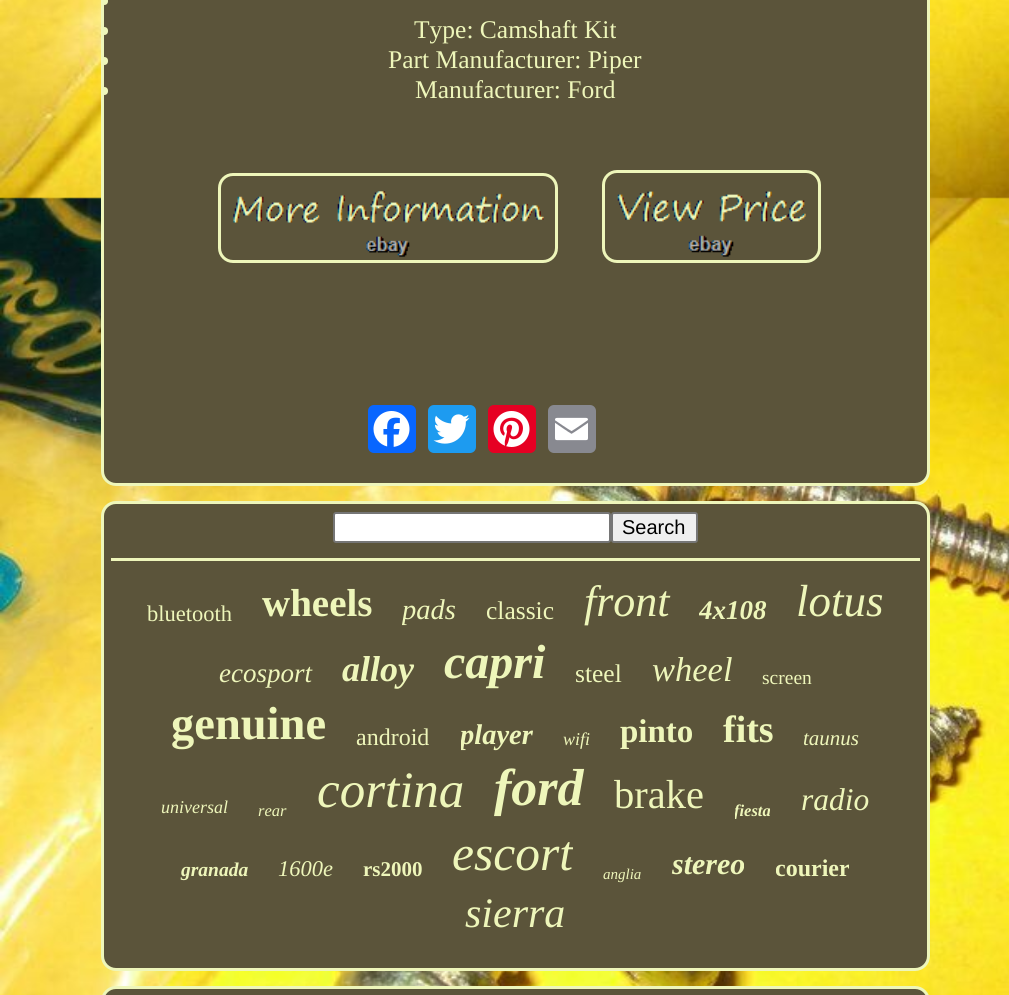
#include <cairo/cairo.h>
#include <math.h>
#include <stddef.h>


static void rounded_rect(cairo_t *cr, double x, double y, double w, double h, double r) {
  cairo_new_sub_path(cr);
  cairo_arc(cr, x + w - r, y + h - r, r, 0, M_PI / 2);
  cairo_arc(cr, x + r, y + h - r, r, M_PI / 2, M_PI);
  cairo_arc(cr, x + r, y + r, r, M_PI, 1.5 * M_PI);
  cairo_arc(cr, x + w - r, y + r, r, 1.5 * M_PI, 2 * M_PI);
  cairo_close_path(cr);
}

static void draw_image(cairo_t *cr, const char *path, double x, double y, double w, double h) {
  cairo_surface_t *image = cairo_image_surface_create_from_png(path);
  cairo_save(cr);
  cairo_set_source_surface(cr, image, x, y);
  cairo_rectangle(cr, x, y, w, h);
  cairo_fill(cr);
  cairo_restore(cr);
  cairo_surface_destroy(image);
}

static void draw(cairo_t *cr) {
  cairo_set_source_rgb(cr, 1, 1, 1);
  cairo_paint(cr);
  draw_image(cr, "images/1.png", 0, 0, 1009, 995);
  cairo_set_source_rgb(cr, 91 / 255.0, 84 / 255.0, 58 / 255.0);
  rounded_rect(cr, 102.5, -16.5, 826, 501, 13.5);
  cairo_fill_preserve(cr);
  cairo_set_source_rgb(cr, 238 / 255.0, 246 / 255.0, 186 / 255.0);
  cairo_set_line_width(cr, 3);
  cairo_stroke(cr);
  rounded_rect(cr, 101, -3, 7, 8, 3.5);
  cairo_fill(cr);
  rounded_rect(cr, 101, 27, 7, 8, 3.5);
  cairo_fill(cr);
  rounded_rect(cr, 101, 57, 7, 8, 3.5);
  cairo_fill(cr);
  rounded_rect(cr, 101, 87, 7, 8, 3.5);
  cairo_fill(cr);
  rounded_rect(cr, 219.5, 174.5, 337, 87, 13.5);
  cairo_stroke(cr);
  draw_image(cr, "images/2.png", 233, 191, 311, 66);
  rounded_rect(cr, 603.5, 171.5, 216, 90, 13.5);
  cairo_stroke(cr);
  draw_image(cr, "images/3.png", 617, 191, 189, 66);
  cairo_set_source_rgb(cr, 8 / 255.0, 102 / 255.0, 1);
  rounded_rect(cr, 368, 405, 48, 48, 6);
  cairo_fill(cr);
  draw_image(cr, "images/4.png", 373, 411, 37, 36);
  cairo_set_source_rgb(cr, 29 / 255.0, 155 / 255.0, 240 / 255.0);
  rounded_rect(cr, 428, 405, 48, 48, 6);
  cairo_fill(cr);
  draw_image(cr, "images/5.png", 433, 414, 37, 30);
  cairo_set_source_rgb(cr, 230 / 255.0, 0, 35 / 255.0);
  rounded_rect(cr, 488, 405, 48, 48, 6);
  cairo_fill(cr);
  draw_image(cr, "images/6.png", 493, 411, 37, 36);
  cairo_set_source_rgb(cr, 136 / 255.0, 137 / 255.0, 144 / 255.0);
  rounded_rect(cr, 548, 405, 48, 48, 6);
  cairo_fill(cr);
  draw_image(cr, "images/7.png", 555, 417, 33, 24);
  cairo_set_source_rgb(cr, 91 / 255.0, 84 / 255.0, 58 / 255.0);
  rounded_rect(cr, 102.5, 502.5, 826, 467, 13.5);
  cairo_fill_preserve(cr);
  cairo_set_source_rgb(cr, 238 / 255.0, 246 / 255.0, 186 / 255.0);
  cairo_stroke(cr);
  cairo_set_source_rgb(cr, 1, 1, 1);
  rounded_rect(cr, 334, 513, 276, 29, 2);
  cairo_fill_preserve(cr);
  cairo_set_source_rgb(cr, 118 / 255.0, 118 / 255.0, 118 / 255.0);
  cairo_set_line_width(cr, 2);
  cairo_stroke(cr);
  cairo_set_source_rgb(cr, 239 / 255.0, 239 / 255.0, 239 / 255.0);
  rounded_rect(cr, 612, 513, 85, 29, 2);
  cairo_fill_preserve(cr);
  cairo_set_source_rgb(cr, 118 / 255.0, 118 / 255.0, 118 / 255.0);
  cairo_stroke(cr);
  cairo_set_source_rgb(cr, 238 / 255.0, 246 / 255.0, 186 / 255.0);
  cairo_rectangle(cr, 111, 558, 809, 3);
  cairo_fill(cr);
  cairo_set_source_rgb(cr, 91 / 255.0, 84 / 255.0, 58 / 255.0);
  rounded_rect(cr, 102.5, 987.5, 826, 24, 13.5);
  cairo_fill_preserve(cr);
  cairo_set_source_rgb(cr, 238 / 255.0, 246 / 255.0, 186 / 255.0);
  cairo_set_line_width(cr, 3);
  cairo_stroke(cr);
  cairo_select_font_face(cr, "Liberation Serif", CAIRO_FONT_SLANT_NORMAL, CAIRO_FONT_WEIGHT_NORMAL);
  cairo_set_font_size(cr, 25.5);
  cairo_move_to(cr, 414, 38);
  cairo_show_text(cr, "Type: Camshaft Kit");
  cairo_move_to(cr, 388, 68);
  cairo_show_text(cr, "Part Manufacturer: Piper");
  cairo_move_to(cr, 415, 98);
  cairo_show_text(cr, "Manufacturer: Ford");
  cairo_select_font_face(cr, "Liberation Sans", CAIRO_FONT_SLANT_NORMAL, CAIRO_FONT_WEIGHT_NORMAL);
  cairo_set_font_size(cr, 20);
  cairo_set_source_rgb(cr, 0, 0, 0);
  cairo_move_to(cr, 622, 534);
  cairo_show_text(cr, "Search");
  cairo_select_font_face(cr, "Liberation Serif", CAIRO_FONT_SLANT_NORMAL, CAIRO_FONT_WEIGHT_NORMAL);
  cairo_set_font_size(cr, 22.5);
  cairo_set_source_rgb(cr, 238 / 255.0, 246 / 255.0, 186 / 255.0);
  cairo_move_to(cr, 147, 621);
  cairo_show_text(cr, "bluetooth");
  cairo_select_font_face(cr, "Liberation Serif", CAIRO_FONT_SLANT_NORMAL, CAIRO_FONT_WEIGHT_BOLD);
  cairo_set_font_size(cr, 39);
  cairo_move_to(cr, 262, 616);
  cairo_show_text(cr, "wheels");
  cairo_save(cr);
  cairo_rectangle(cr, 402, 594, 54, 33);
  cairo_clip(cr);
  cairo_select_font_face(cr, "Liberation Serif", CAIRO_FONT_SLANT_ITALIC, CAIRO_FONT_WEIGHT_NORMAL);
  cairo_set_font_size(cr, 28.5);
  cairo_move_to(cr, 402, 619);
  cairo_show_text(cr, "pads");
  cairo_restore(cr);
  cairo_select_font_face(cr, "Liberation Serif", CAIRO_FONT_SLANT_NORMAL, CAIRO_FONT_WEIGHT_NORMAL);
  cairo_set_font_size(cr, 25.5);
  cairo_move_to(cr, 486, 619);
  cairo_show_text(cr, "classic");
  cairo_select_font_face(cr, "Liberation Serif", CAIRO_FONT_SLANT_ITALIC, CAIRO_FONT_WEIGHT_NORMAL);
  cairo_set_font_size(cr, 44);
  cairo_move_to(cr, 584, 616);
  cairo_show_text(cr, "front");
  cairo_save(cr);
  cairo_rectangle(cr, 699, 596, 68, 31);
  cairo_clip(cr);
  cairo_select_font_face(cr, "Liberation Serif", CAIRO_FONT_SLANT_ITALIC, CAIRO_FONT_WEIGHT_BOLD);
  cairo_set_font_size(cr, 27);
  cairo_move_to(cr, 699, 619);
  cairo_show_text(cr, "4x108");
  cairo_restore(cr);
  cairo_set_font_size(cr, 45);
  cairo_move_to(cr, 796, 616);
  cairo_show_text(cr, "lotus");
  cairo_set_font_size(cr, 27);
  cairo_move_to(cr, 219, 682);
  cairo_show_text(cr, "ecosport");
  cairo_select_font_face(cr, "Liberation Serif", CAIRO_FONT_SLANT_ITALIC, CAIRO_FONT_WEIGHT_BOLD);
  cairo_set_font_size(cr, 36);
  cairo_move_to(cr, 342, 681);
  cairo_show_text(cr, "alloy");
  cairo_set_font_size(cr, 48);
  cairo_move_to(cr, 444, 678);
  cairo_show_text(cr, "capri");
  cairo_select_font_face(cr, "Liberation Serif", CAIRO_FONT_SLANT_NORMAL, CAIRO_FONT_WEIGHT_NORMAL);
  cairo_set_font_size(cr, 25.5);
  cairo_move_to(cr, 575, 682);
  cairo_show_text(cr, "steel");
  cairo_select_font_face(cr, "Liberation Serif", CAIRO_FONT_SLANT_ITALIC, CAIRO_FONT_WEIGHT_NORMAL);
  cairo_set_font_size(cr, 34.5);
  cairo_move_to(cr, 652, 681);
  cairo_show_text(cr, "wheel");
  cairo_select_font_face(cr, "Liberation Serif", CAIRO_FONT_SLANT_NORMAL, CAIRO_FONT_WEIGHT_NORMAL);
  cairo_set_font_size(cr, 19.5);
  cairo_move_to(cr, 762, 684);
  cairo_show_text(cr, "screen");
  cairo_select_font_face(cr, "Liberation Serif", CAIRO_FONT_SLANT_NORMAL, CAIRO_FONT_WEIGHT_BOLD);
  cairo_set_font_size(cr, 46.5);
  cairo_move_to(cr, 171, 739);
  cairo_show_text(cr, "genuine");
  cairo_select_font_face(cr, "Liberation Serif", CAIRO_FONT_SLANT_NORMAL, CAIRO_FONT_WEIGHT_NORMAL);
  cairo_set_font_size(cr, 24);
  cairo_move_to(cr, 356, 745);
  cairo_show_text(cr, "android");
  cairo_save(cr);
  cairo_rectangle(cr, 461, 719, 72, 33);
  cairo_clip(cr);
  cairo_select_font_face(cr, "Liberation Serif", CAIRO_FONT_SLANT_ITALIC, CAIRO_FONT_WEIGHT_BOLD);
  cairo_set_font_size(cr, 28.5);
  cairo_move_to(cr, 460, 744);
  cairo_show_text(cr, "player");
  cairo_restore(cr);
  cairo_select_font_face(cr, "Liberation Serif", CAIRO_FONT_SLANT_ITALIC, CAIRO_FONT_WEIGHT_NORMAL);
  cairo_set_font_size(cr, 18);
  cairo_move_to(cr, 563, 745);
  cairo_show_text(cr, "wifi");
  cairo_select_font_face(cr, "Liberation Serif", CAIRO_FONT_SLANT_NORMAL, CAIRO_FONT_WEIGHT_BOLD);
  cairo_set_font_size(cr, 33);
  cairo_move_to(cr, 620, 742);
  cairo_show_text(cr, "pinto");
  cairo_set_font_size(cr, 38);
  cairo_move_to(cr, 723, 742);
  cairo_show_text(cr, "fits");
  cairo_select_font_face(cr, "Liberation Serif", CAIRO_FONT_SLANT_ITALIC, CAIRO_FONT_WEIGHT_NORMAL);
  cairo_set_font_size(cr, 21);
  cairo_move_to(cr, 803, 745);
  cairo_show_text(cr, "taunus");
  cairo_set_font_size(cr, 18);
  cairo_move_to(cr, 161, 813);
  cairo_show_text(cr, "universal");
  cairo_set_font_size(cr, 16.5);
  cairo_move_to(cr, 258, 816);
  cairo_show_text(cr, "rear");
  cairo_set_font_size(cr, 51);
  cairo_move_to(cr, 317, 807);
  cairo_show_text(cr, "cortina");
  cairo_select_font_face(cr, "Liberation Serif", CAIRO_FONT_SLANT_ITALIC, CAIRO_FONT_WEIGHT_BOLD);
  cairo_set_font_size(cr, 52);
  cairo_move_to(cr, 494, 805);
  cairo_show_text(cr, "ford");
  cairo_select_font_face(cr, "Liberation Serif", CAIRO_FONT_SLANT_NORMAL, CAIRO_FONT_WEIGHT_NORMAL);
  cairo_set_font_size(cr, 40.5);
  cairo_move_to(cr, 614, 808);
  cairo_show_text(cr, "brake");
  cairo_save(cr);
  cairo_rectangle(cr, 735, 801, 36, 18);
  cairo_clip(cr);
  cairo_select_font_face(cr, "Liberation Serif", CAIRO_FONT_SLANT_ITALIC, CAIRO_FONT_WEIGHT_BOLD);
  cairo_set_font_size(cr, 16.5);
  cairo_move_to(cr, 734, 816);
  cairo_show_text(cr, "fiesta");
  cairo_restore(cr);
  cairo_select_font_face(cr, "Liberation Serif", CAIRO_FONT_SLANT_ITALIC, CAIRO_FONT_WEIGHT_NORMAL);
  cairo_set_font_size(cr, 31.5);
  cairo_move_to(cr, 801, 810);
  cairo_show_text(cr, "radio");
  cairo_select_font_face(cr, "Liberation Serif", CAIRO_FONT_SLANT_ITALIC, CAIRO_FONT_WEIGHT_BOLD);
  cairo_set_font_size(cr, 19.5);
  cairo_move_to(cr, 181, 876);
  cairo_show_text(cr, "granada");
  cairo_select_font_face(cr, "Liberation Serif", CAIRO_FONT_SLANT_ITALIC, CAIRO_FONT_WEIGHT_NORMAL);
  cairo_set_font_size(cr, 22.5);
  cairo_move_to(cr, 278, 876);
  cairo_show_text(cr, "1600e");
  cairo_select_font_face(cr, "Liberation Serif", CAIRO_FONT_SLANT_NORMAL, CAIRO_FONT_WEIGHT_BOLD);
  cairo_set_font_size(cr, 21);
  cairo_move_to(cr, 363, 876);
  cairo_show_text(cr, "rs2000");
  cairo_save(cr);
  cairo_rectangle(cr, 453, 827, 120, 55);
  cairo_clip(cr);
  cairo_select_font_face(cr, "Liberation Serif", CAIRO_FONT_SLANT_ITALIC, CAIRO_FONT_WEIGHT_NORMAL);
  cairo_set_font_size(cr, 49.5);
  cairo_move_to(cr, 452, 870);
  cairo_show_text(cr, "escort");
  cairo_restore(cr);
  cairo_select_font_face(cr, "Liberation Serif", CAIRO_FONT_SLANT_ITALIC, CAIRO_FONT_WEIGHT_NORMAL);
  cairo_set_font_size(cr, 15);
  cairo_move_to(cr, 603, 879);
  cairo_show_text(cr, "anglia");
  cairo_select_font_face(cr, "Liberation Serif", CAIRO_FONT_SLANT_ITALIC, CAIRO_FONT_WEIGHT_BOLD);
  cairo_set_font_size(cr, 30);
  cairo_move_to(cr, 672, 874);
  cairo_show_text(cr, "stereo");
  cairo_save(cr);
  cairo_rectangle(cr, 776, 855, 73, 27);
  cairo_clip(cr);
  cairo_select_font_face(cr, "Liberation Serif", CAIRO_FONT_SLANT_NORMAL, CAIRO_FONT_WEIGHT_BOLD);
  cairo_set_font_size(cr, 24);
  cairo_move_to(cr, 775, 876);
  cairo_show_text(cr, "courier");
  cairo_restore(cr);
  cairo_select_font_face(cr, "Liberation Serif", CAIRO_FONT_SLANT_ITALIC, CAIRO_FONT_WEIGHT_NORMAL);
  cairo_set_font_size(cr, 42);
  cairo_move_to(cr, 465, 927);
  cairo_show_text(cr, "sierra");
}

int main(void) {
  cairo_surface_t *surface = cairo_image_surface_create(CAIRO_FORMAT_RGB24, 1009, 995);
  cairo_t *cr = cairo_create(surface);
  cairo_font_options_t *options = cairo_font_options_create();
  cairo_font_options_set_hint_metrics(options, CAIRO_HINT_METRICS_OFF);
  cairo_font_options_set_hint_style(options, CAIRO_HINT_STYLE_NONE);
  cairo_set_font_options(cr, options);
  cairo_set_miter_limit(cr, 4);
  draw(cr);
  cairo_surface_write_to_png(surface, "out.png");
  cairo_font_options_destroy(options);
  cairo_destroy(cr);
  cairo_surface_destroy(surface);
  return 0;
}
